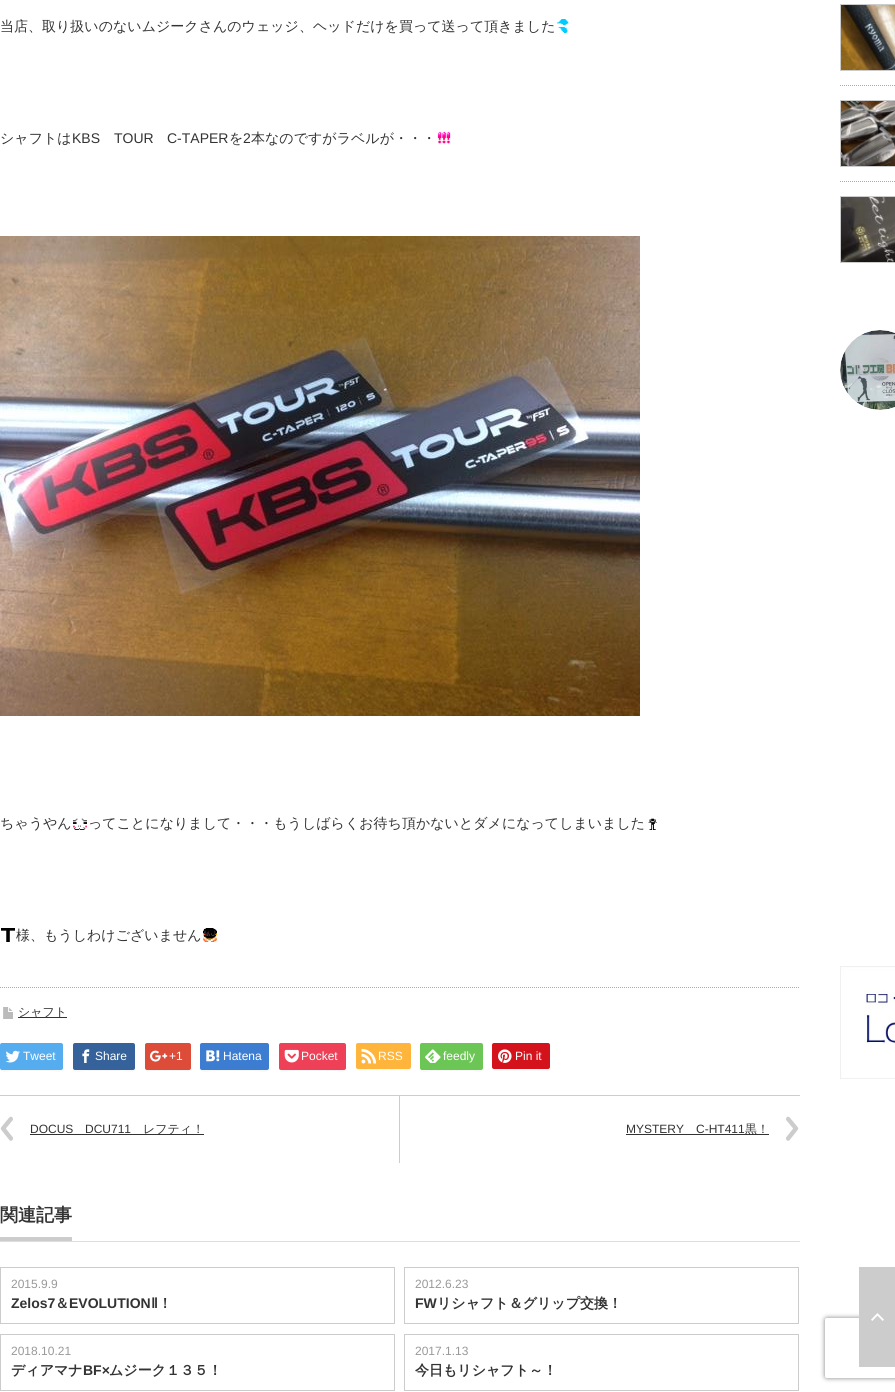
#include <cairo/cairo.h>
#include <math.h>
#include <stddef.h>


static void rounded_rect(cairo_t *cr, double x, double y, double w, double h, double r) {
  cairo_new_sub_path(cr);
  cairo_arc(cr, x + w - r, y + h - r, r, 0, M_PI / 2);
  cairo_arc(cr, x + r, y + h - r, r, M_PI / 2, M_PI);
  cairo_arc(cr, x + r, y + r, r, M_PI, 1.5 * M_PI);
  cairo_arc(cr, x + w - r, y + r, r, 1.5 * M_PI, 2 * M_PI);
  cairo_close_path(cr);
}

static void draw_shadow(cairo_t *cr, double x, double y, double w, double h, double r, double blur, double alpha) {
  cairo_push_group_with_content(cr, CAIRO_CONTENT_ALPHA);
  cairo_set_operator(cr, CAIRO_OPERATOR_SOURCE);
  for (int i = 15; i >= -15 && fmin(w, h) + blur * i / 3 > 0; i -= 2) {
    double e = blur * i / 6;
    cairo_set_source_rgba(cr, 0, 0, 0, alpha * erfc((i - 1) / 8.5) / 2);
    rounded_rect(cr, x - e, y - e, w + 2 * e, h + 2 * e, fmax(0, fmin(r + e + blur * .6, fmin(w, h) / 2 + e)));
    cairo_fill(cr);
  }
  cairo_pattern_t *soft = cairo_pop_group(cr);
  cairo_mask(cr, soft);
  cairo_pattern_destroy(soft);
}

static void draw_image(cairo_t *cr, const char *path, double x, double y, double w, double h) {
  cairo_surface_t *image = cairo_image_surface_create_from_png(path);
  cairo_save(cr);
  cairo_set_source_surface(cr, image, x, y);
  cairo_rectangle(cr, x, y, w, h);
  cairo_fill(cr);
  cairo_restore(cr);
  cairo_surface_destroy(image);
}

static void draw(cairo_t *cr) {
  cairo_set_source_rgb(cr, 1, 1, 1);
  cairo_paint(cr);
  draw_image(cr, "images/1.png", 556, 19, 13, 14);
  draw_image(cr, "images/2.png", 437, 131, 14, 13);
  draw_image(cr, "images/3.png", 0, 236, 640, 480);
  draw_image(cr, "images/4.png", 73, 818, 14, 12);
  draw_image(cr, "images/5.png", 648, 818, 9, 12);
  draw_image(cr, "images/6.png", 1, 928, 14, 14);
  draw_image(cr, "images/7.png", 203, 928, 14, 14);
  cairo_new_path(cr);
  cairo_move_to(cr, 0, 987.5);
  cairo_line_to(cr, 800, 987.5);
  cairo_set_source_rgb(cr, 170 / 255.0, 170 / 255.0, 170 / 255.0);
  cairo_set_line_width(cr, 1);
  cairo_set_dash(cr, (double[]){1, 1}, 2, 0);
  cairo_stroke(cr);
  draw_image(cr, "images/8.png", 3, 1007, 10, 12);
  cairo_set_source_rgb(cr, 51 / 255.0, 51 / 255.0, 51 / 255.0);
  cairo_rectangle(cr, 18, 1017, 49, 1);
  cairo_fill(cr);
  cairo_set_source_rgb(cr, 247 / 255.0, 247 / 255.0, 247 / 255.0);
  cairo_new_path(cr);
  cairo_move_to(cr, 0, 1068);
  cairo_curve_to(cr, 0, 1074, 8, 1071, 12, 1071);
  cairo_line_to(cr, 51, 1071);
  cairo_curve_to(cr, 55, 1071, 63, 1074, 63, 1068);
  cairo_curve_to(cr, 63, 1072, 55, 1070, 51, 1070);
  cairo_line_to(cr, 1, 1070);
  cairo_close_path(cr);
  cairo_fill(cr);
  cairo_set_source_rgb(cr, 85 / 255.0, 172 / 255.0, 238 / 255.0);
  rounded_rect(cr, 0, 1043, 63, 27, 2);
  cairo_fill(cr);
  draw_image(cr, "images/9.png", 5, 1050, 15, 13);
  cairo_set_source_rgb(cr, 247 / 255.0, 247 / 255.0, 247 / 255.0);
  cairo_new_path(cr);
  cairo_move_to(cr, 73, 1068);
  cairo_curve_to(cr, 73, 1074, 81, 1071, 85, 1071);
  cairo_line_to(cr, 123, 1071);
  cairo_curve_to(cr, 127, 1071, 135, 1074, 135, 1068);
  cairo_line_to(cr, 134, 1070);
  cairo_line_to(cr, 85, 1070);
  cairo_curve_to(cr, 81, 1070, 73, 1072, 73, 1068);
  cairo_close_path(cr);
  cairo_fill(cr);
  cairo_set_source_rgb(cr, 53 / 255.0, 98 / 255.0, 154 / 255.0);
  rounded_rect(cr, 73, 1043, 62, 27, 2);
  cairo_fill(cr);
  draw_image(cr, "images/10.png", 82, 1049, 8, 14);
  cairo_set_source_rgb(cr, 247 / 255.0, 247 / 255.0, 247 / 255.0);
  cairo_new_path(cr);
  cairo_move_to(cr, 145, 1068);
  cairo_curve_to(cr, 145, 1073, 150, 1071, 154, 1071);
  cairo_line_to(cr, 182, 1071);
  cairo_curve_to(cr, 186, 1071, 191, 1073, 191, 1068);
  cairo_curve_to(cr, 191, 1069, 190, 1070, 189, 1070);
  cairo_line_to(cr, 147, 1070);
  cairo_curve_to(cr, 146, 1070, 145, 1069, 145, 1068);
  cairo_close_path(cr);
  cairo_fill(cr);
  cairo_set_source_rgb(cr, 221 / 255.0, 75 / 255.0, 57 / 255.0);
  rounded_rect(cr, 145, 1043, 46, 27, 2);
  cairo_fill(cr);
  draw_image(cr, "images/11.png", 150, 1050, 18, 12);
  cairo_set_source_rgb(cr, 247 / 255.0, 247 / 255.0, 247 / 255.0);
  cairo_new_path(cr);
  cairo_move_to(cr, 200, 1068);
  cairo_curve_to(cr, 200, 1074, 209, 1071, 213, 1071);
  cairo_line_to(cr, 256, 1071);
  cairo_curve_to(cr, 260, 1071, 269, 1074, 269, 1068);
  cairo_curve_to(cr, 269, 1069, 268, 1070, 267, 1070);
  cairo_line_to(cr, 201, 1070);
  cairo_close_path(cr);
  cairo_fill(cr);
  cairo_set_source_rgb(cr, 60 / 255.0, 125 / 255.0, 209 / 255.0);
  rounded_rect(cr, 200, 1043, 69, 27, 2);
  cairo_fill(cr);
  draw_image(cr, "images/12.png", 206, 1050, 14, 12);
  cairo_set_source_rgb(cr, 247 / 255.0, 247 / 255.0, 247 / 255.0);
  cairo_new_path(cr);
  cairo_move_to(cr, 279, 1068);
  cairo_curve_to(cr, 279, 1074, 288, 1071, 292, 1071);
  cairo_line_to(cr, 334, 1071);
  cairo_curve_to(cr, 337, 1071, 346, 1074, 346, 1068);
  cairo_line_to(cr, 345, 1070);
  cairo_line_to(cr, 281, 1070);
  cairo_line_to(cr, 279, 1069);
  cairo_close_path(cr);
  cairo_fill(cr);
  cairo_set_source_rgb(cr, 238 / 255.0, 64 / 255.0, 86 / 255.0);
  rounded_rect(cr, 279, 1043, 67, 27, 2);
  cairo_fill(cr);
  draw_image(cr, "images/13.png", 284, 1049, 15, 14);
  cairo_set_source_rgb(cr, 247 / 255.0, 247 / 255.0, 247 / 255.0);
  cairo_new_path(cr);
  cairo_move_to(cr, 356, 1067);
  cairo_curve_to(cr, 356, 1072, 363, 1070, 366, 1070);
  cairo_line_to(cr, 400, 1070);
  cairo_curve_to(cr, 404, 1070, 411, 1072, 411, 1067);
  cairo_line_to(cr, 410, 1069);
  cairo_line_to(cr, 357, 1069);
  cairo_close_path(cr);
  cairo_fill(cr);
  cairo_set_source_rgb(cr, 1, 181 / 255.0, 60 / 255.0);
  rounded_rect(cr, 356, 1043, 55, 26, 2);
  cairo_fill(cr);
  draw_image(cr, "images/14.png", 361, 1048, 16, 16);
  cairo_set_source_rgb(cr, 247 / 255.0, 247 / 255.0, 247 / 255.0);
  cairo_new_path(cr);
  cairo_move_to(cr, 420, 1068);
  cairo_curve_to(cr, 420, 1074, 428, 1071, 432, 1071);
  cairo_line_to(cr, 471, 1071);
  cairo_curve_to(cr, 475, 1071, 483, 1074, 483, 1068);
  cairo_line_to(cr, 482, 1070);
  cairo_line_to(cr, 432, 1070);
  cairo_curve_to(cr, 428, 1070, 420, 1072, 420, 1068);
  cairo_close_path(cr);
  cairo_fill(cr);
  cairo_set_source_rgb(cr, 108 / 255.0, 198 / 255.0, 85 / 255.0);
  rounded_rect(cr, 420, 1043, 63, 27, 2);
  cairo_fill(cr);
  draw_image(cr, "images/15.png", 425, 1049, 16, 14);
  cairo_set_source_rgb(cr, 247 / 255.0, 247 / 255.0, 247 / 255.0);
  cairo_new_path(cr);
  cairo_move_to(cr, 492, 1067);
  cairo_curve_to(cr, 492, 1072, 499, 1070, 503, 1070);
  cairo_line_to(cr, 539, 1070);
  cairo_curve_to(cr, 543, 1070, 550, 1072, 550, 1067);
  cairo_line_to(cr, 549, 1069);
  cairo_line_to(cr, 493, 1069);
  cairo_close_path(cr);
  cairo_fill(cr);
  cairo_set_source_rgb(cr, 212 / 255.0, 18 / 255.0, 28 / 255.0);
  rounded_rect(cr, 492, 1043, 58, 26, 2);
  cairo_fill(cr);
  draw_image(cr, "images/16.png", 498, 1049, 14, 14);
  cairo_set_source_rgb(cr, 204 / 255.0, 204 / 255.0, 204 / 255.0);
  cairo_rectangle(cr, 0, 1095, 800, 1);
  cairo_fill(cr);
  draw_image(cr, "images/17.png", 0, 1116, 13, 25);
  cairo_rectangle(cr, 399, 1096, 1, 67);
  cairo_fill(cr);
  cairo_set_source_rgb(cr, 51 / 255.0, 51 / 255.0, 51 / 255.0);
  cairo_rectangle(cr, 30, 1134, 174, 1);
  cairo_fill(cr);
  draw_image(cr, "images/18.png", 786, 1116, 13, 25);
  cairo_rectangle(cr, 626, 1134, 143, 1);
  cairo_fill(cr);
  cairo_set_source_rgb(cr, 221 / 255.0, 221 / 255.0, 221 / 255.0);
  cairo_rectangle(cr, 0, 1241, 800, 1);
  cairo_fill(cr);
  cairo_set_source_rgb(cr, 204 / 255.0, 204 / 255.0, 204 / 255.0);
  cairo_rectangle(cr, 0, 1237, 72, 4);
  cairo_fill(cr);
  cairo_rectangle(cr, 0.5, 1267.5, 394, 56);
  cairo_set_dash(cr, NULL, 0, 0);
  cairo_stroke(cr);
  cairo_rectangle(cr, 404.5, 1267.5, 394, 56);
  cairo_stroke(cr);
  cairo_rectangle(cr, 0.5, 1334.5, 394, 56);
  cairo_stroke(cr);
  cairo_rectangle(cr, 404.5, 1334.5, 394, 56);
  cairo_stroke(cr);
  cairo_new_path(cr);
  cairo_move_to(cr, 840, 85.5);
  cairo_line_to(cr, 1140, 85.5);
  cairo_set_source_rgb(cr, 170 / 255.0, 170 / 255.0, 170 / 255.0);
  cairo_set_dash(cr, (double[]){1, 1}, 2, 0);
  cairo_stroke(cr);
  cairo_rectangle(cr, 840.5, 4.5, 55, 66);
  cairo_set_source_rgb(cr, 204 / 255.0, 204 / 255.0, 204 / 255.0);
  cairo_set_dash(cr, NULL, 0, 0);
  cairo_stroke(cr);
  draw_image(cr, "images/19.png", 841, 5, 54, 65);
  cairo_new_path(cr);
  cairo_move_to(cr, 840, 181.5);
  cairo_line_to(cr, 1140, 181.5);
  cairo_set_source_rgb(cr, 170 / 255.0, 170 / 255.0, 170 / 255.0);
  cairo_set_dash(cr, (double[]){1, 1}, 2, 0);
  cairo_stroke(cr);
  cairo_rectangle(cr, 840.5, 100.5, 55, 66);
  cairo_set_source_rgb(cr, 204 / 255.0, 204 / 255.0, 204 / 255.0);
  cairo_set_dash(cr, NULL, 0, 0);
  cairo_stroke(cr);
  draw_image(cr, "images/20.png", 841, 101, 54, 65);
  cairo_rectangle(cr, 840.5, 196.5, 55, 66);
  cairo_stroke(cr);
  draw_image(cr, "images/21.png", 841, 197, 54, 65);
  draw_image(cr, "images/22.png", 840, 330, 55, 80);
  draw_image(cr, "images/23.png", 840, 966, 55, 113);
  cairo_save(cr);
  cairo_set_fill_rule(cr, CAIRO_FILL_RULE_EVEN_ODD);
  cairo_new_path(cr);
  cairo_move_to(cr, 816, 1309);
  cairo_line_to(cr, 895, 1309);
  cairo_line_to(cr, 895, 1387);
  cairo_line_to(cr, 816, 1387);
  cairo_close_path(cr);
  cairo_move_to(cr, 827, 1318);
  cairo_line_to(cr, 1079, 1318);
  cairo_curve_to(cr, 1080, 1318, 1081, 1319, 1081, 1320);
  cairo_line_to(cr, 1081, 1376);
  cairo_curve_to(cr, 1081, 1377, 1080, 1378, 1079, 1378);
  cairo_line_to(cr, 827, 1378);
  cairo_curve_to(cr, 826, 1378, 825, 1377, 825, 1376);
  cairo_line_to(cr, 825, 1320);
  cairo_curve_to(cr, 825, 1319, 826, 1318, 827, 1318);
  cairo_close_path(cr);
  cairo_clip(cr);
  cairo_set_source_rgb(cr, 128 / 255.0, 128 / 255.0, 128 / 255.0);
  draw_shadow(cr, 825, 1318, 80, 60, 2, 2.5, 1);
  cairo_restore(cr);
  cairo_rectangle(cr, 859, 1267, 36, 100);
  cairo_fill(cr);
  draw_image(cr, "images/24.png", 871, 1313, 13, 8);
  cairo_select_font_face(cr, "WenQuanYi Zen Hei Medium", CAIRO_FONT_SLANT_NORMAL, CAIRO_FONT_WEIGHT_NORMAL);
  cairo_set_font_size(cr, 14);
  cairo_set_source_rgb(cr, 51 / 255.0, 51 / 255.0, 51 / 255.0);
  cairo_move_to(cr, 0, 31);
  cairo_show_text(cr, "当店、取り扱いのないムジークさんのウェッジ、ヘッドだけを買って送って頂きました");
  cairo_move_to(cr, 0, 143);
  cairo_show_text(cr, "シャフトは");
  cairo_select_font_face(cr, "Liberation Sans", CAIRO_FONT_SLANT_NORMAL, CAIRO_FONT_WEIGHT_NORMAL);
  cairo_move_to(cr, 72, 143);
  cairo_show_text(cr, "KBS");
  cairo_move_to(cr, 114, 143);
  cairo_show_text(cr, "TOUR");
  cairo_move_to(cr, 167, 143);
  cairo_show_text(cr, "C-TAPER");
  cairo_select_font_face(cr, "WenQuanYi Zen Hei Medium", CAIRO_FONT_SLANT_NORMAL, CAIRO_FONT_WEIGHT_NORMAL);
  cairo_move_to(cr, 229, 143);
  cairo_show_text(cr, "を");
  cairo_select_font_face(cr, "Liberation Sans", CAIRO_FONT_SLANT_NORMAL, CAIRO_FONT_WEIGHT_NORMAL);
  cairo_move_to(cr, 243, 143);
  cairo_show_text(cr, "2");
  cairo_select_font_face(cr, "WenQuanYi Zen Hei Medium", CAIRO_FONT_SLANT_NORMAL, CAIRO_FONT_WEIGHT_NORMAL);
  cairo_move_to(cr, 251, 143);
  cairo_show_text(cr, "本なのですがラベルが・・・");
  cairo_move_to(cr, 0, 828);
  cairo_show_text(cr, "ちゃうやん");
  cairo_move_to(cr, 88, 828);
  cairo_show_text(cr, "ってことになりまして・・・もうしばらくお待ち頂かないとダメになってしまいました");
  cairo_move_to(cr, 16, 940);
  cairo_show_text(cr, "様、もうしわけございません");
  cairo_set_font_size(cr, 12);
  cairo_move_to(cr, 18, 1016);
  cairo_show_text(cr, "シャフト");
  cairo_select_font_face(cr, "Liberation Sans", CAIRO_FONT_SLANT_NORMAL, CAIRO_FONT_WEIGHT_NORMAL);
  cairo_set_source_rgb(cr, 1, 1, 1);
  cairo_move_to(cr, 23, 1060);
  cairo_show_text(cr, "Tweet");
  cairo_move_to(cr, 95, 1060);
  cairo_show_text(cr, "Share");
  cairo_move_to(cr, 169, 1060);
  cairo_show_text(cr, "+1");
  cairo_move_to(cr, 223, 1060);
  cairo_show_text(cr, "Hatena");
  cairo_move_to(cr, 301, 1060);
  cairo_show_text(cr, "Pocket");
  cairo_move_to(cr, 378, 1060);
  cairo_show_text(cr, "RSS");
  cairo_move_to(cr, 443, 1060);
  cairo_show_text(cr, "feedly");
  cairo_move_to(cr, 515, 1060);
  cairo_show_text(cr, "Pin it");
  cairo_set_source_rgb(cr, 51 / 255.0, 51 / 255.0, 51 / 255.0);
  cairo_move_to(cr, 30, 1133);
  cairo_show_text(cr, "DOCUS");
  cairo_move_to(cr, 85, 1133);
  cairo_show_text(cr, "DCU711");
  cairo_select_font_face(cr, "WenQuanYi Zen Hei Medium", CAIRO_FONT_SLANT_NORMAL, CAIRO_FONT_WEIGHT_NORMAL);
  cairo_move_to(cr, 143, 1133);
  cairo_show_text(cr, "レフティ！");
  cairo_select_font_face(cr, "Liberation Sans", CAIRO_FONT_SLANT_NORMAL, CAIRO_FONT_WEIGHT_NORMAL);
  cairo_move_to(cr, 626, 1133);
  cairo_show_text(cr, "MYSTERY");
  cairo_move_to(cr, 696, 1133);
  cairo_show_text(cr, "C-HT411");
  cairo_select_font_face(cr, "WenQuanYi Zen Hei Medium", CAIRO_FONT_SLANT_NORMAL, CAIRO_FONT_WEIGHT_NORMAL);
  cairo_move_to(cr, 745, 1133);
  cairo_show_text(cr, "黒！");
  cairo_select_font_face(cr, "WenQuanYi Zen Hei", CAIRO_FONT_SLANT_NORMAL, CAIRO_FONT_WEIGHT_BOLD);
  cairo_set_font_size(cr, 18);
  cairo_move_to(cr, 0, 1221);
  cairo_show_text(cr, "関連記事");
  cairo_select_font_face(cr, "Liberation Sans", CAIRO_FONT_SLANT_NORMAL, CAIRO_FONT_WEIGHT_NORMAL);
  cairo_set_font_size(cr, 12);
  cairo_set_source_rgb(cr, 153 / 255.0, 153 / 255.0, 153 / 255.0);
  cairo_move_to(cr, 11, 1288);
  cairo_show_text(cr, "2015.9.9");
  cairo_select_font_face(cr, "Liberation Sans", CAIRO_FONT_SLANT_NORMAL, CAIRO_FONT_WEIGHT_BOLD);
  cairo_set_font_size(cr, 14);
  cairo_set_source_rgb(cr, 51 / 255.0, 51 / 255.0, 51 / 255.0);
  cairo_move_to(cr, 11, 1308);
  cairo_show_text(cr, "Zelos7");
  cairo_select_font_face(cr, "WenQuanYi Zen Hei", CAIRO_FONT_SLANT_NORMAL, CAIRO_FONT_WEIGHT_BOLD);
  cairo_move_to(cr, 55, 1308);
  cairo_show_text(cr, "＆");
  cairo_select_font_face(cr, "Liberation Sans", CAIRO_FONT_SLANT_NORMAL, CAIRO_FONT_WEIGHT_BOLD);
  cairo_move_to(cr, 69, 1308);
  cairo_show_text(cr, "EVOLUTION");
  cairo_select_font_face(cr, "DejaVu Sans", CAIRO_FONT_SLANT_NORMAL, CAIRO_FONT_WEIGHT_BOLD);
  cairo_move_to(cr, 151, 1308);
  cairo_show_text(cr, "Ⅱ");
  cairo_select_font_face(cr, "WenQuanYi Zen Hei", CAIRO_FONT_SLANT_NORMAL, CAIRO_FONT_WEIGHT_BOLD);
  cairo_move_to(cr, 158, 1308);
  cairo_show_text(cr, "！");
  cairo_select_font_face(cr, "Liberation Sans", CAIRO_FONT_SLANT_NORMAL, CAIRO_FONT_WEIGHT_NORMAL);
  cairo_set_font_size(cr, 12);
  cairo_set_source_rgb(cr, 153 / 255.0, 153 / 255.0, 153 / 255.0);
  cairo_move_to(cr, 415, 1288);
  cairo_show_text(cr, "2012.6.23");
  cairo_select_font_face(cr, "Liberation Sans", CAIRO_FONT_SLANT_NORMAL, CAIRO_FONT_WEIGHT_BOLD);
  cairo_set_font_size(cr, 14);
  cairo_set_source_rgb(cr, 51 / 255.0, 51 / 255.0, 51 / 255.0);
  cairo_move_to(cr, 415, 1308);
  cairo_show_text(cr, "FW");
  cairo_select_font_face(cr, "WenQuanYi Zen Hei", CAIRO_FONT_SLANT_NORMAL, CAIRO_FONT_WEIGHT_BOLD);
  cairo_move_to(cr, 437, 1308);
  cairo_show_text(cr, "リシャフト＆グリップ交換！");
  cairo_select_font_face(cr, "Liberation Sans", CAIRO_FONT_SLANT_NORMAL, CAIRO_FONT_WEIGHT_NORMAL);
  cairo_set_font_size(cr, 12);
  cairo_set_source_rgb(cr, 153 / 255.0, 153 / 255.0, 153 / 255.0);
  cairo_move_to(cr, 11, 1355);
  cairo_show_text(cr, "2018.10.21");
  cairo_select_font_face(cr, "WenQuanYi Zen Hei", CAIRO_FONT_SLANT_NORMAL, CAIRO_FONT_WEIGHT_BOLD);
  cairo_set_font_size(cr, 14);
  cairo_set_source_rgb(cr, 51 / 255.0, 51 / 255.0, 51 / 255.0);
  cairo_move_to(cr, 11, 1375);
  cairo_show_text(cr, "ディアマナ");
  cairo_select_font_face(cr, "Liberation Sans", CAIRO_FONT_SLANT_NORMAL, CAIRO_FONT_WEIGHT_BOLD);
  cairo_move_to(cr, 83, 1375);
  cairo_show_text(cr, "BF×");
  cairo_select_font_face(cr, "WenQuanYi Zen Hei", CAIRO_FONT_SLANT_NORMAL, CAIRO_FONT_WEIGHT_BOLD);
  cairo_move_to(cr, 109, 1375);
  cairo_show_text(cr, "ムジーク１３５！");
  cairo_select_font_face(cr, "Liberation Sans", CAIRO_FONT_SLANT_NORMAL, CAIRO_FONT_WEIGHT_NORMAL);
  cairo_set_font_size(cr, 12);
  cairo_set_source_rgb(cr, 153 / 255.0, 153 / 255.0, 153 / 255.0);
  cairo_move_to(cr, 415, 1355);
  cairo_show_text(cr, "2017.1.13");
  cairo_select_font_face(cr, "WenQuanYi Zen Hei", CAIRO_FONT_SLANT_NORMAL, CAIRO_FONT_WEIGHT_BOLD);
  cairo_set_font_size(cr, 14);
  cairo_set_source_rgb(cr, 51 / 255.0, 51 / 255.0, 51 / 255.0);
  cairo_move_to(cr, 415, 1375);
  cairo_show_text(cr, "今日もリシャフト～！");
}

int main(void) {
  cairo_surface_t *surface = cairo_image_surface_create(CAIRO_FORMAT_RGB24, 895, 1392);
  cairo_t *cr = cairo_create(surface);
  cairo_font_options_t *options = cairo_font_options_create();
  cairo_font_options_set_hint_metrics(options, CAIRO_HINT_METRICS_OFF);
  cairo_font_options_set_hint_style(options, CAIRO_HINT_STYLE_NONE);
  cairo_set_font_options(cr, options);
  cairo_set_miter_limit(cr, 4);
  draw(cr);
  cairo_surface_write_to_png(surface, "out.png");
  cairo_font_options_destroy(options);
  cairo_destroy(cr);
  cairo_surface_destroy(surface);
  return 0;
}
